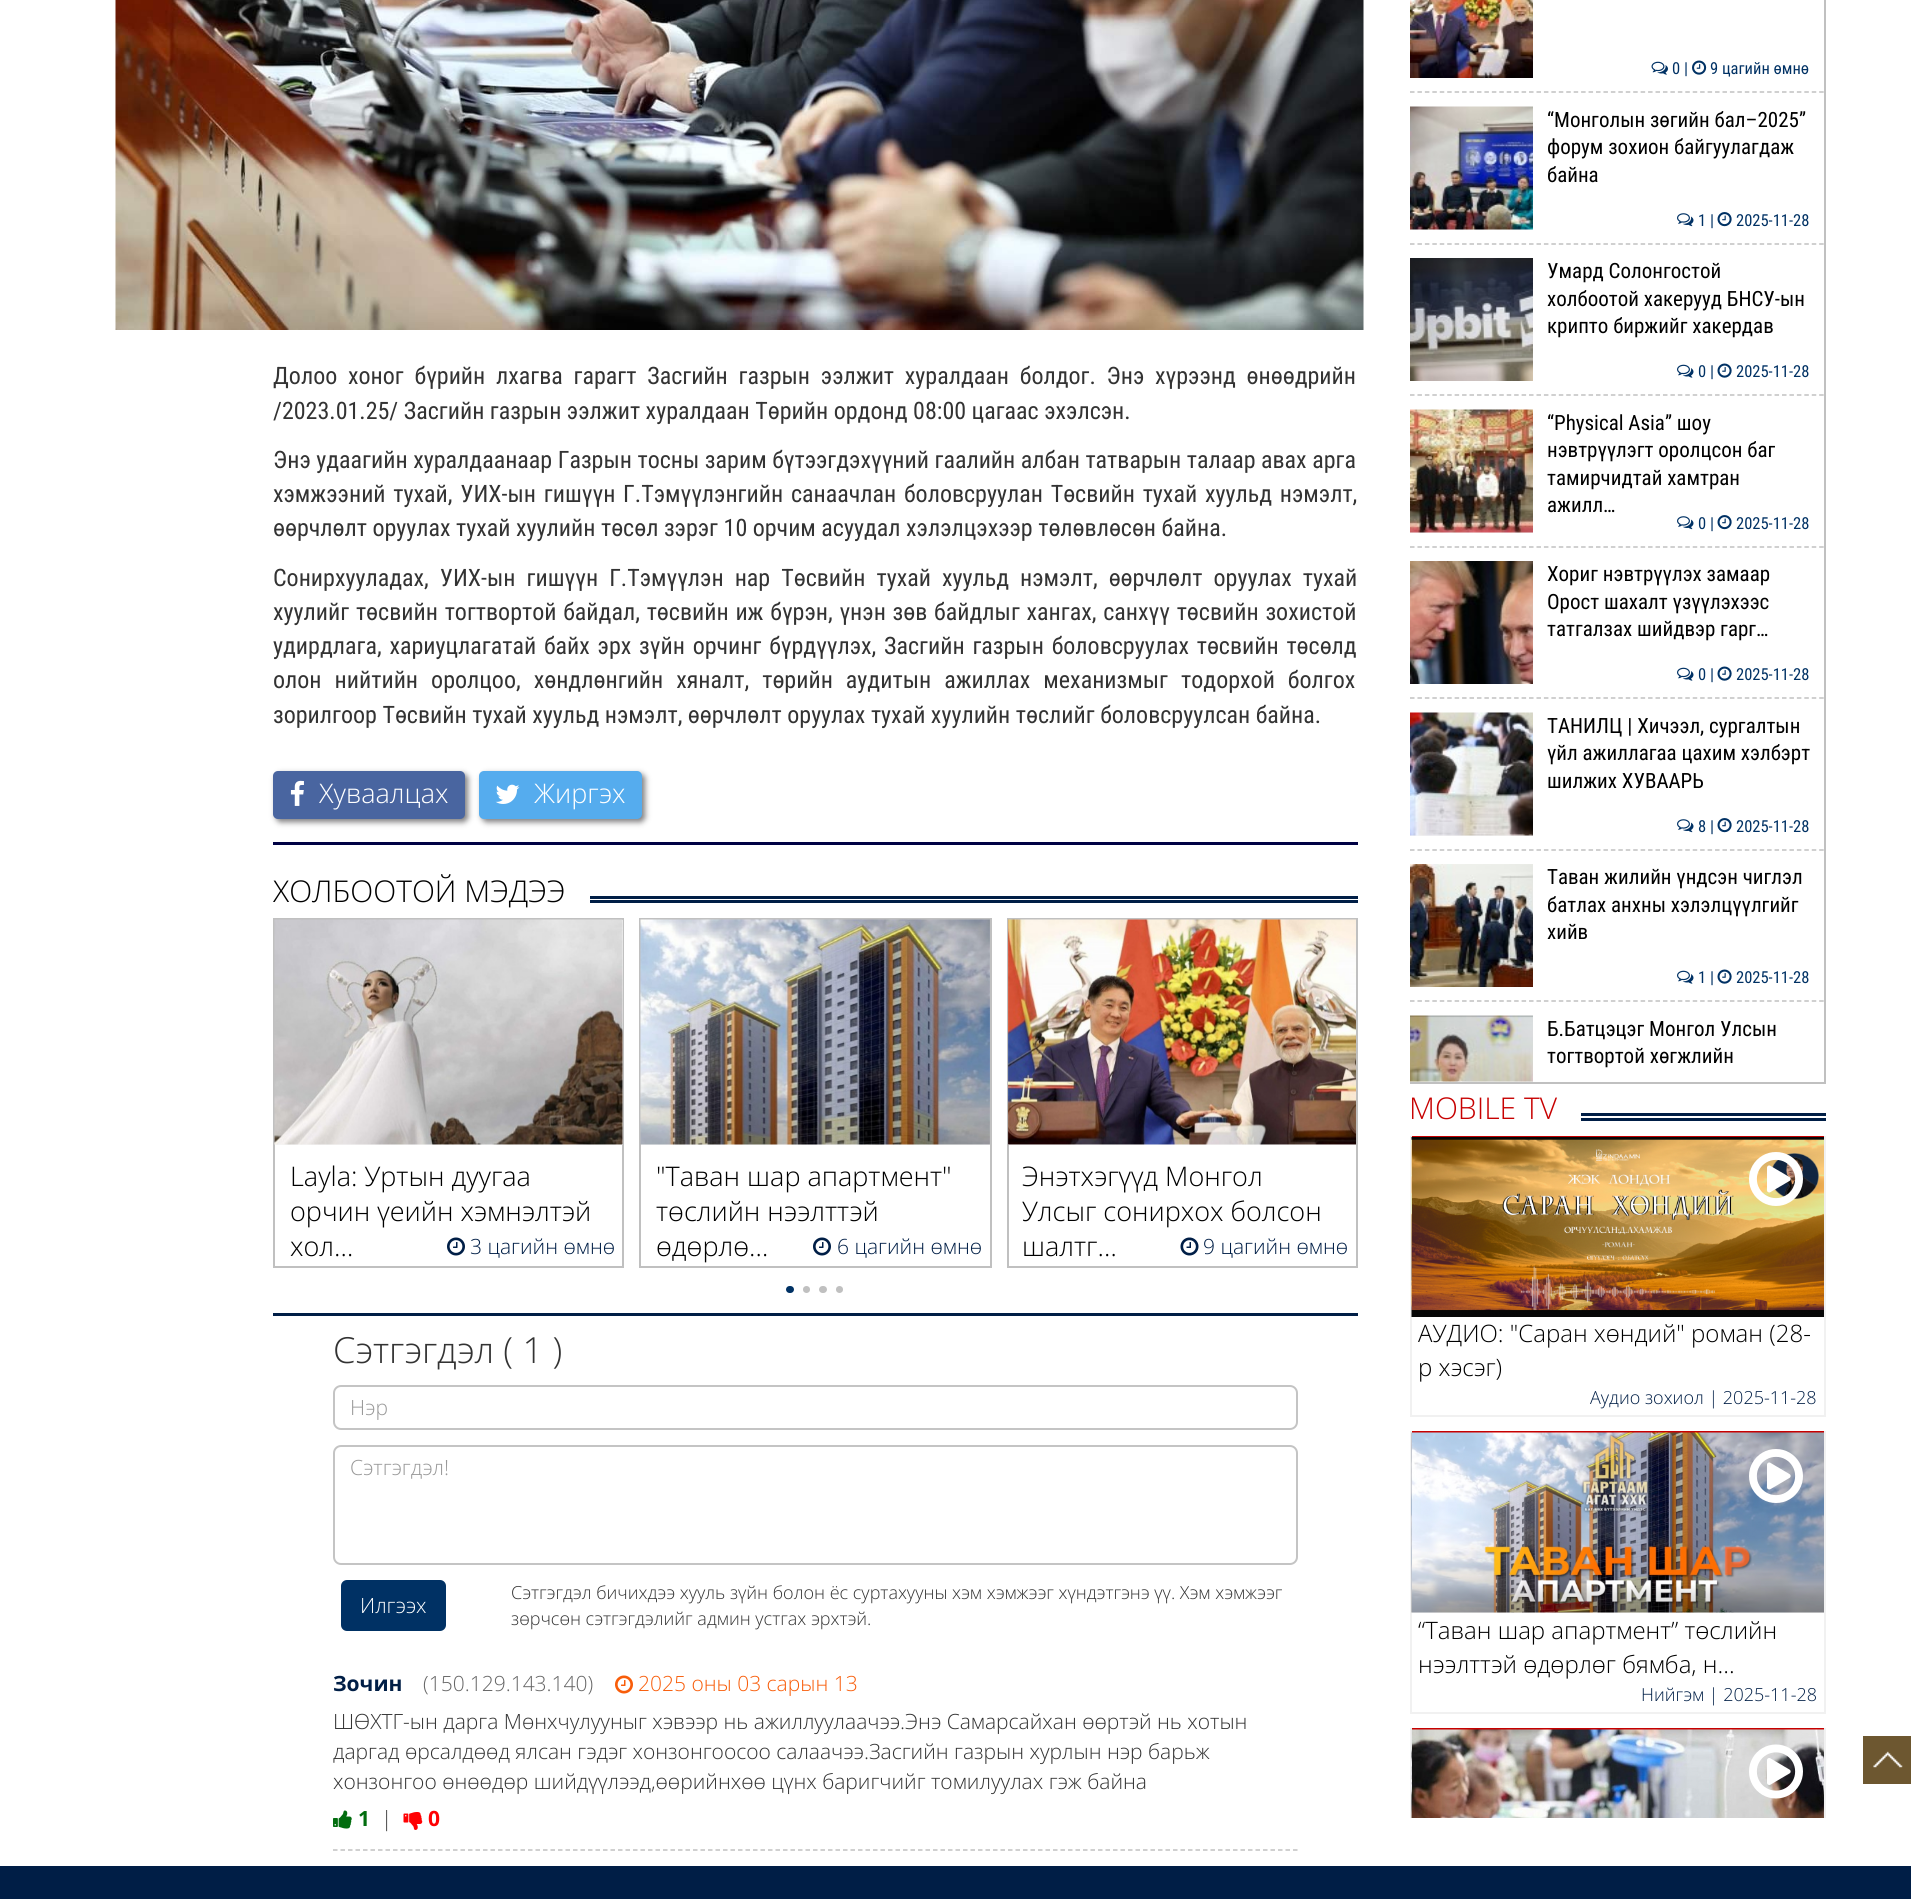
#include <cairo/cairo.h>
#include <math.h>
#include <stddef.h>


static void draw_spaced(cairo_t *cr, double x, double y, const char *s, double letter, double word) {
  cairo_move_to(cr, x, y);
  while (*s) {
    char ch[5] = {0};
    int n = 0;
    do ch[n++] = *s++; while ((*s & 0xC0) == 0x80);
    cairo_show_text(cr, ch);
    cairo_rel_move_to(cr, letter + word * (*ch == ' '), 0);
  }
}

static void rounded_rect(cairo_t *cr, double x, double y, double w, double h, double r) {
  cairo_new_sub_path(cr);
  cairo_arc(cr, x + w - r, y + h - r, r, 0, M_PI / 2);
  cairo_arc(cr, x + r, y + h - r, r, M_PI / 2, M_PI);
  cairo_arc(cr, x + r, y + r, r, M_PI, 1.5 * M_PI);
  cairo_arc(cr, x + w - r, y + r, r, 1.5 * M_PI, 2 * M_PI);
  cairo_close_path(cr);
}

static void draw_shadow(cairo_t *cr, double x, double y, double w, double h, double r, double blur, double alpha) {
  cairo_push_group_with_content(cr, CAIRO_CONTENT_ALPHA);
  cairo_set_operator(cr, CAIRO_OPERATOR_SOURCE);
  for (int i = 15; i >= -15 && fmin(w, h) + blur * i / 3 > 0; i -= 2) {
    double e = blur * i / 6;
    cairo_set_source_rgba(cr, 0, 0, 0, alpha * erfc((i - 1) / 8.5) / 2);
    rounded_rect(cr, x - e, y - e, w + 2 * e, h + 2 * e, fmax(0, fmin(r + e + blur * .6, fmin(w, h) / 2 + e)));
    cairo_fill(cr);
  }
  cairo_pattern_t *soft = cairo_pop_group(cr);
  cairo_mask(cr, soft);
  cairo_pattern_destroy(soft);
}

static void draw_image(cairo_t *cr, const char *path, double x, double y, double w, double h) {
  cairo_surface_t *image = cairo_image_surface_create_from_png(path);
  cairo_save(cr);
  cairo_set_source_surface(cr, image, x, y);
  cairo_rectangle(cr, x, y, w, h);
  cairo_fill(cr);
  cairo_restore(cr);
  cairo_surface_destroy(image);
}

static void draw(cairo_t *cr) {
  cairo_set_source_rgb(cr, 1, 1, 1);
  cairo_paint(cr);
  draw_image(cr, "images/1.png", 115, 0, 1249, 330);
  cairo_set_source_rgb(cr, 0, 1 / 255.0, 68 / 255.0);
  cairo_rectangle(cr, 273, 842, 1085, 3);
  cairo_fill(cr);
  cairo_set_source_rgb(cr, 125 / 255.0, 124 / 255.0, 125 / 255.0);
  draw_shadow(cr, 276, 774, 192, 48, 5, 3, 1);
  cairo_set_source_rgb(cr, 73 / 255.0, 101 / 255.0, 160 / 255.0);
  rounded_rect(cr, 273, 771, 192, 48, 5);
  cairo_fill(cr);
  draw_image(cr, "images/2.png", 290, 780, 14, 26);
  cairo_set_source_rgb(cr, 125 / 255.0, 124 / 255.0, 125 / 255.0);
  draw_shadow(cr, 482, 774, 163, 48, 5, 3, 1);
  cairo_set_source_rgb(cr, 85 / 255.0, 172 / 255.0, 238 / 255.0);
  rounded_rect(cr, 479, 771, 163, 48, 5);
  cairo_fill(cr);
  draw_image(cr, "images/3.png", 495, 784, 25, 20);
  cairo_set_source_rgb(cr, 0, 30 / 255.0, 70 / 255.0);
  cairo_rectangle(cr, 590, 896, 768, 3);
  cairo_fill(cr);
  cairo_rectangle(cr, 590, 900, 768, 3);
  cairo_fill(cr);
  cairo_rectangle(cr, 274, 919, 349, 348);
  cairo_set_source_rgb(cr, 192 / 255.0, 192 / 255.0, 192 / 255.0);
  cairo_stroke(cr);
  cairo_set_source_rgb(cr, 245 / 255.0, 245 / 255.0, 245 / 255.0);
  cairo_rectangle(cr, 275, 920, 348, 225);
  cairo_fill(cr);
  draw_image(cr, "images/4.png", 274, 919, 349, 226);
  draw_image(cr, "images/5.png", 447, 1237, 18, 19);
  cairo_rectangle(cr, 640, 919, 351, 348);
  cairo_set_source_rgb(cr, 192 / 255.0, 192 / 255.0, 192 / 255.0);
  cairo_stroke(cr);
  cairo_set_source_rgb(cr, 245 / 255.0, 245 / 255.0, 245 / 255.0);
  cairo_rectangle(cr, 641, 920, 349, 225);
  cairo_fill(cr);
  draw_image(cr, "images/6.png", 640, 919, 350, 226);
  draw_image(cr, "images/5.png", 813, 1237, 18, 19);
  cairo_rectangle(cr, 1008, 919, 349, 348);
  cairo_set_source_rgb(cr, 192 / 255.0, 192 / 255.0, 192 / 255.0);
  cairo_stroke(cr);
  cairo_set_source_rgb(cr, 245 / 255.0, 245 / 255.0, 245 / 255.0);
  cairo_rectangle(cr, 1008, 920, 348, 225);
  cairo_fill(cr);
  draw_image(cr, "images/7.png", 1008, 919, 348, 226);
  draw_image(cr, "images/8.png", 1180, 1237, 19, 19);
  cairo_set_source_rgb(cr, 0, 49 / 255.0, 100 / 255.0);
  rounded_rect(cr, 786, 1286, 8, 7, 3.5);
  cairo_fill(cr);
  cairo_set_source_rgb(cr, 192 / 255.0, 192 / 255.0, 192 / 255.0);
  cairo_arc(cr, 806.5, 1289.5, 3.5, 0, 2 * M_PI);
  cairo_fill(cr);
  rounded_rect(cr, 819, 1286, 8, 7, 3.5);
  cairo_fill(cr);
  cairo_arc(cr, 839.5, 1289.5, 3.5, 0, 2 * M_PI);
  cairo_fill(cr);
  cairo_set_source_rgb(cr, 0, 30 / 255.0, 70 / 255.0);
  cairo_rectangle(cr, 273, 1313, 1085, 3);
  cairo_fill(cr);
  rounded_rect(cr, 334, 1386, 963, 43, 7);
  cairo_set_source_rgb(cr, 196 / 255.0, 196 / 255.0, 196 / 255.0);
  cairo_stroke(cr);
  rounded_rect(cr, 334, 1446, 963, 118, 7);
  cairo_stroke(cr);
  cairo_set_source_rgb(cr, 0, 49 / 255.0, 100 / 255.0);
  rounded_rect(cr, 342, 1581, 103, 49, 5);
  cairo_fill_preserve(cr);
  cairo_stroke(cr);
  cairo_new_path(cr);
  cairo_move_to(cr, 333, 1850);
  cairo_line_to(cr, 1297.5, 1850);
  cairo_set_source_rgb(cr, 192 / 255.0, 192 / 255.0, 192 / 255.0);
  cairo_set_line_width(cr, 1.5);
  cairo_set_dash(cr, (double[]){4.5, 3}, 2, 0);
  cairo_stroke(cr);
  draw_image(cr, "images/9.png", 615, 1675, 18, 19);
  draw_image(cr, "images/10.png", 333, 1810, 19, 19);
  draw_image(cr, "images/11.png", 403, 1812, 20, 18);
  cairo_rectangle(cr, 1824, 0, 2, 1083);
  cairo_fill(cr);
  cairo_rectangle(cr, 1410, 1082, 416, 2);
  cairo_fill(cr);
  cairo_new_path(cr);
  cairo_move_to(cr, 1410, 92);
  cairo_line_to(cr, 1824, 92);
  cairo_set_dash(cr, (double[]){4.5, 2.94}, 2, 0);
  cairo_stroke(cr);
  draw_image(cr, "images/12.png", 1410, 0, 123, 78);
  draw_image(cr, "images/13.png", 1651, 61, 17, 14);
  draw_image(cr, "images/14.png", 1692, 60, 15, 15);
  cairo_new_path(cr);
  cairo_move_to(cr, 1410, 244);
  cairo_line_to(cr, 1824, 244);
  cairo_stroke(cr);
  cairo_set_source_rgb(cr, 245 / 255.0, 245 / 255.0, 245 / 255.0);
  cairo_rectangle(cr, 1410, 229, 123, 1);
  cairo_fill(cr);
  draw_image(cr, "images/15.png", 1410, 106, 123, 124);
  draw_image(cr, "images/16.png", 1677, 213, 17, 14);
  draw_image(cr, "images/17.png", 1717, 212, 15, 15);
  cairo_new_path(cr);
  cairo_move_to(cr, 1410, 395);
  cairo_line_to(cr, 1824, 395);
  cairo_set_source_rgb(cr, 192 / 255.0, 192 / 255.0, 192 / 255.0);
  cairo_stroke(cr);
  draw_image(cr, "images/18.png", 1410, 258, 123, 123);
  draw_image(cr, "images/19.png", 1677, 364, 17, 14);
  draw_image(cr, "images/20.png", 1717, 363, 15, 15);
  cairo_new_path(cr);
  cairo_move_to(cr, 1410, 547);
  cairo_line_to(cr, 1824, 547);
  cairo_stroke(cr);
  cairo_set_source_rgb(cr, 245 / 255.0, 245 / 255.0, 245 / 255.0);
  cairo_rectangle(cr, 1410, 532, 123, 1);
  cairo_fill(cr);
  draw_image(cr, "images/21.png", 1410, 409, 123, 124);
  draw_image(cr, "images/16.png", 1677, 516, 17, 14);
  draw_image(cr, "images/17.png", 1717, 515, 15, 15);
  cairo_new_path(cr);
  cairo_move_to(cr, 1410, 698);
  cairo_line_to(cr, 1824, 698);
  cairo_set_source_rgb(cr, 192 / 255.0, 192 / 255.0, 192 / 255.0);
  cairo_stroke(cr);
  draw_image(cr, "images/22.png", 1410, 561, 123, 123);
  draw_image(cr, "images/19.png", 1677, 667, 17, 14);
  draw_image(cr, "images/20.png", 1717, 666, 15, 15);
  cairo_new_path(cr);
  cairo_move_to(cr, 1410, 850);
  cairo_line_to(cr, 1824, 850);
  cairo_stroke(cr);
  cairo_set_source_rgb(cr, 245 / 255.0, 245 / 255.0, 245 / 255.0);
  cairo_rectangle(cr, 1410, 835, 123, 1);
  cairo_fill(cr);
  draw_image(cr, "images/23.png", 1410, 712, 123, 124);
  draw_image(cr, "images/16.png", 1677, 819, 17, 14);
  draw_image(cr, "images/17.png", 1717, 818, 15, 15);
  cairo_new_path(cr);
  cairo_move_to(cr, 1410, 1001);
  cairo_line_to(cr, 1824, 1001);
  cairo_set_source_rgb(cr, 192 / 255.0, 192 / 255.0, 192 / 255.0);
  cairo_stroke(cr);
  draw_image(cr, "images/24.png", 1410, 864, 123, 123);
  draw_image(cr, "images/19.png", 1677, 970, 17, 14);
  draw_image(cr, "images/20.png", 1717, 969, 15, 15);
  cairo_set_source_rgb(cr, 245 / 255.0, 245 / 255.0, 245 / 255.0);
  cairo_rectangle(cr, 1410, 1081, 123, 1);
  cairo_fill(cr);
  draw_image(cr, "images/25.png", 1410, 1015, 123, 67);
  cairo_set_source_rgb(cr, 0, 30 / 255.0, 70 / 255.0);
  cairo_rectangle(cr, 1581, 1113, 245, 3);
  cairo_fill(cr);
  cairo_rectangle(cr, 1581, 1118, 245, 3);
  cairo_fill(cr);
  cairo_set_source_rgb(cr, 199 / 255.0, 0, 0);
  cairo_rectangle(cr, 1410, 1136, 416, 1);
  cairo_fill(cr);
  cairo_set_source_rgb(cr, 241 / 255.0, 241 / 255.0, 241 / 255.0);
  cairo_rectangle(cr, 1824, 1136, 2, 280);
  cairo_fill(cr);
  cairo_rectangle(cr, 1410, 1415, 416, 2);
  cairo_fill(cr);
  cairo_rectangle(cr, 1410, 1136, 2, 280);
  cairo_fill(cr);
  draw_image(cr, "images/26.png", 1411, 1137, 413, 180);
  draw_image(cr, "images/27.png", 1749, 1152, 54, 54);
  cairo_set_source_rgb(cr, 199 / 255.0, 0, 0);
  cairo_rectangle(cr, 1410, 1431, 416, 2);
  cairo_fill(cr);
  cairo_set_source_rgb(cr, 241 / 255.0, 241 / 255.0, 241 / 255.0);
  cairo_rectangle(cr, 1824, 1431, 2, 282);
  cairo_fill(cr);
  cairo_rectangle(cr, 1410, 1712, 416, 2);
  cairo_fill(cr);
  cairo_rectangle(cr, 1410, 1431, 2, 282);
  cairo_fill(cr);
  cairo_set_source_rgb(cr, 245 / 255.0, 245 / 255.0, 245 / 255.0);
  cairo_rectangle(cr, 1412, 1612, 412, 1);
  cairo_fill(cr);
  draw_image(cr, "images/28.png", 1411, 1432, 413, 181);
  draw_image(cr, "images/29.png", 1749, 1449, 54, 54);
  cairo_set_source_rgb(cr, 199 / 255.0, 0, 0);
  cairo_rectangle(cr, 1410, 1728, 416, 2);
  cairo_fill(cr);
  cairo_set_source_rgb(cr, 241 / 255.0, 241 / 255.0, 241 / 255.0);
  cairo_rectangle(cr, 1824, 1728, 2, 90);
  cairo_fill(cr);
  cairo_rectangle(cr, 1410, 1728, 2, 90);
  cairo_fill(cr);
  draw_image(cr, "images/30.png", 1411, 1729, 413, 89);
  draw_image(cr, "images/31.png", 1749, 1744, 54, 55);
  cairo_set_source_rgb(cr, 0, 30 / 255.0, 70 / 255.0);
  cairo_rectangle(cr, 0, 1866, 1911, 33);
  cairo_fill(cr);
  cairo_set_source_rgb(cr, 109 / 255.0, 87 / 255.0, 48 / 255.0);
  cairo_rectangle(cr, 1863, 1736, 48, 48);
  cairo_fill(cr);
  draw_image(cr, "images/32.png", 1873, 1751, 30, 17);
  cairo_select_font_face(cr, "Roboto Condensed", CAIRO_FONT_SLANT_NORMAL, CAIRO_FONT_WEIGHT_NORMAL);
  cairo_set_font_size(cr, 24);
  cairo_set_source_rgb(cr, 51 / 255.0, 51 / 255.0, 51 / 255.0);
  draw_spaced(cr, 273, 384, "Долоо хоног бүрийн лхагва гарагт Засгийн газрын ээлжит хуралдаан болдог. Энэ хүрээнд өнөөдрийн", 0, 5.25);
  cairo_move_to(cr, 273, 419);
  cairo_show_text(cr, "/2023.01.25/ Засгийн газрын ээлжит хуралдаан Төрийн ордонд 08:00 цагаас эхэлсэн.");
  cairo_move_to(cr, 273, 468);
  cairo_show_text(cr, "Энэ удаагийн хуралдаанаар Газрын тосны зарим бүтээгдэхүүний гаалийн албан татварын талаар авах арга");
  draw_spaced(cr, 273, 502, "хэмжээний тухай, УИХ-ын гишүүн Г.Тэмүүлэнгийн санаачлан боловсруулан Төсвийн тухай хуульд нэмэлт,", 0, 2.25);
  cairo_move_to(cr, 273, 536);
  cairo_show_text(cr, "өөрчлөлт оруулах тухай хуулийн төсөл зэрэг 10 орчим асуудал хэлэлцэхээр төлөвлөсөн байна.");
  draw_spaced(cr, 273, 586, "Сонирхууладах, УИХ-ын гишүүн Г.Тэмүүлэн нар Төсвийн тухай хуульд нэмэлт, өөрчлөлт оруулах тухай", 0, 5.5);
  draw_spaced(cr, 273, 620, "хуулийг төсвийн тогтвортой байдал, төсвийн иж бүрэн, үнэн зөв байдлыг хангах, санхүү төсвийн зохистой", 0, 1.25);
  draw_spaced(cr, 273, 654, "удирдлага, хариуцлагатай байх эрх зүйн орчинг бүрдүүлэх, Засгийн газрын боловсруулах төсвийн төсөлд", 0, 2.25);
  draw_spaced(cr, 273, 688, "олон нийтийн оролцоо, хөндлөнгийн хяналт, төрийн аудитын ажиллах механизмыг тодорхой болгох", 0, 7.5);
  cairo_move_to(cr, 273, 723);
  cairo_show_text(cr, "зорилгоор Төсвийн тухай хуульд нэмэлт, өөрчлөлт оруулах тухай хуулийн төслийг боловсруулсан байна.");
  cairo_select_font_face(cr, "Open Sans Light", CAIRO_FONT_SLANT_NORMAL, CAIRO_FONT_WEIGHT_NORMAL);
  cairo_set_font_size(cr, 27);
  cairo_set_source_rgb(cr, 1, 1, 1);
  cairo_move_to(cr, 319, 803);
  cairo_show_text(cr, "Хуваалцах");
  cairo_move_to(cr, 534, 803);
  cairo_show_text(cr, "Жиргэх");
  cairo_set_font_size(cr, 30);
  cairo_set_source_rgb(cr, 0, 0, 0);
  cairo_move_to(cr, 273, 902);
  cairo_show_text(cr, "ХОЛБООТОЙ МЭДЭЭ");
  cairo_set_font_size(cr, 27);
  cairo_move_to(cr, 290, 1186);
  cairo_show_text(cr, "Layla: Уртын дуугаа");
  cairo_move_to(cr, 290, 1221);
  cairo_show_text(cr, "орчин үеийн хэмнэлтэй");
  cairo_move_to(cr, 290, 1256);
  cairo_show_text(cr, "хол…");
  cairo_set_font_size(cr, 21);
  cairo_set_source_rgb(cr, 0, 30 / 255.0, 70 / 255.0);
  cairo_move_to(cr, 470, 1254);
  cairo_show_text(cr, "3 цагийн өмнө");
  cairo_set_font_size(cr, 27);
  cairo_set_source_rgb(cr, 0, 0, 0);
  cairo_move_to(cr, 656, 1186);
  cairo_show_text(cr, "\"Таван шар апартмент\"");
  cairo_move_to(cr, 656, 1221);
  cairo_show_text(cr, "төслийн нээлттэй");
  cairo_move_to(cr, 656, 1256);
  cairo_show_text(cr, "өдөрлө…");
  cairo_set_font_size(cr, 21);
  cairo_set_source_rgb(cr, 0, 30 / 255.0, 70 / 255.0);
  cairo_move_to(cr, 837, 1254);
  cairo_show_text(cr, "6 цагийн өмнө");
  cairo_set_font_size(cr, 27);
  cairo_set_source_rgb(cr, 0, 0, 0);
  cairo_move_to(cr, 1022, 1186);
  cairo_show_text(cr, "Энэтхэгүүд Монгол");
  cairo_move_to(cr, 1022, 1221);
  cairo_show_text(cr, "Улсыг сонирхох болсон");
  cairo_move_to(cr, 1022, 1256);
  cairo_show_text(cr, "шалтг…");
  cairo_set_font_size(cr, 21);
  cairo_set_source_rgb(cr, 0, 30 / 255.0, 70 / 255.0);
  cairo_move_to(cr, 1203, 1254);
  cairo_show_text(cr, "9 цагийн өмнө");
  cairo_set_font_size(cr, 36);
  cairo_set_source_rgb(cr, 51 / 255.0, 51 / 255.0, 51 / 255.0);
  cairo_move_to(cr, 333, 1363);
  cairo_show_text(cr, "Сэтгэгдэл ( 1 )");
  cairo_set_font_size(cr, 21);
  cairo_set_source_rgb(cr, 153 / 255.0, 153 / 255.0, 153 / 255.0);
  cairo_move_to(cr, 350, 1415);
  cairo_show_text(cr, "Нэр");
  cairo_move_to(cr, 350, 1475);
  cairo_show_text(cr, "Сэтгэгдэл!");
  cairo_set_source_rgb(cr, 1, 1, 1);
  cairo_move_to(cr, 360, 1613);
  cairo_show_text(cr, "Илгээх");
  cairo_set_font_size(cr, 18);
  cairo_set_source_rgb(cr, 51 / 255.0, 51 / 255.0, 51 / 255.0);
  cairo_move_to(cr, 511, 1599);
  cairo_show_text(cr, "Сэтгэгдэл бичихдээ хууль зүйн болон ёс суртахууны хэм хэмжээг хүндэтгэнэ үү. Хэм хэмжээг");
  cairo_move_to(cr, 511, 1625);
  cairo_show_text(cr, "зөрчсөн сэтгэгдэлийг админ устгах эрхтэй.");
  cairo_select_font_face(cr, "Open Sans", CAIRO_FONT_SLANT_NORMAL, CAIRO_FONT_WEIGHT_BOLD);
  cairo_set_font_size(cr, 21);
  cairo_set_source_rgb(cr, 0, 30 / 255.0, 70 / 255.0);
  cairo_move_to(cr, 333, 1691);
  cairo_show_text(cr, "Зочин");
  cairo_select_font_face(cr, "Open Sans Light", CAIRO_FONT_SLANT_NORMAL, CAIRO_FONT_WEIGHT_NORMAL);
  cairo_set_source_rgb(cr, 102 / 255.0, 102 / 255.0, 102 / 255.0);
  cairo_move_to(cr, 423, 1691);
  cairo_show_text(cr, "(150.129.143.140)");
  cairo_set_source_rgb(cr, 248 / 255.0, 93 / 255.0, 10 / 255.0);
  cairo_move_to(cr, 638, 1691);
  cairo_show_text(cr, "2025 оны 03 сарын 13");
  cairo_set_source_rgb(cr, 51 / 255.0, 51 / 255.0, 51 / 255.0);
  cairo_move_to(cr, 333, 1729);
  cairo_show_text(cr, "ШӨХТГ-ын дарга Мөнхчулууныг хэвээр нь ажиллуулаачээ.Энэ Самарсайхан өөртэй нь хотын");
  cairo_move_to(cr, 333, 1759);
  cairo_show_text(cr, "даргад өрсалдөөд ялсан гэдэг хонзонгоосоо салаачээ.Засгийн газрын хурлын нэр барьж");
  cairo_move_to(cr, 333, 1789);
  cairo_show_text(cr, "хонзонгоо өнөөдөр шийдүүлээд,өөрийнхөө цүнх баригчийг томилуулах гэж байна");
  cairo_select_font_face(cr, "Open Sans", CAIRO_FONT_SLANT_NORMAL, CAIRO_FONT_WEIGHT_BOLD);
  cairo_set_source_rgb(cr, 2 / 255.0, 109 / 255.0, 15 / 255.0);
  cairo_move_to(cr, 358, 1826);
  cairo_show_text(cr, "1");
  cairo_select_font_face(cr, "Open Sans Light", CAIRO_FONT_SLANT_NORMAL, CAIRO_FONT_WEIGHT_NORMAL);
  cairo_set_source_rgb(cr, 51 / 255.0, 51 / 255.0, 51 / 255.0);
  cairo_move_to(cr, 381, 1826);
  cairo_show_text(cr, "|");
  cairo_select_font_face(cr, "Open Sans", CAIRO_FONT_SLANT_NORMAL, CAIRO_FONT_WEIGHT_BOLD);
  cairo_set_source_rgb(cr, 1, 1 / 255.0, 3 / 255.0);
  cairo_move_to(cr, 428, 1826);
  cairo_show_text(cr, "0");
  cairo_select_font_face(cr, "Roboto Condensed", CAIRO_FONT_SLANT_NORMAL, CAIRO_FONT_WEIGHT_NORMAL);
  cairo_set_font_size(cr, 16.5);
  cairo_set_source_rgb(cr, 0, 49 / 255.0, 100 / 255.0);
  cairo_move_to(cr, 1672, 74);
  cairo_show_text(cr, "0 |");
  cairo_move_to(cr, 1710, 74);
  cairo_show_text(cr, "9 цагийн өмнө");
  cairo_set_font_size(cr, 21);
  cairo_set_source_rgb(cr, 0, 0, 0);
  cairo_move_to(cr, 1547, 127);
  cairo_show_text(cr, "“Монголын зөгийн бал–2025”");
  cairo_move_to(cr, 1547, 154);
  cairo_show_text(cr, "форум зохион байгуулагдаж");
  cairo_move_to(cr, 1547, 182);
  cairo_show_text(cr, "байна");
  cairo_set_font_size(cr, 16.5);
  cairo_set_source_rgb(cr, 0, 49 / 255.0, 100 / 255.0);
  cairo_move_to(cr, 1698, 226);
  cairo_show_text(cr, "1 |");
  cairo_move_to(cr, 1736, 226);
  cairo_show_text(cr, "2025-11-28");
  cairo_set_font_size(cr, 21);
  cairo_set_source_rgb(cr, 0, 0, 0);
  cairo_move_to(cr, 1547, 278);
  cairo_show_text(cr, "Умард Солонгостой");
  cairo_move_to(cr, 1547, 306);
  cairo_show_text(cr, "холбоотой хакерууд БНСУ-ын");
  cairo_move_to(cr, 1547, 333);
  cairo_show_text(cr, "крипто биржийг хакердав");
  cairo_set_font_size(cr, 16.5);
  cairo_set_source_rgb(cr, 0, 49 / 255.0, 100 / 255.0);
  cairo_move_to(cr, 1698, 377);
  cairo_show_text(cr, "0 |");
  cairo_move_to(cr, 1736, 377);
  cairo_show_text(cr, "2025-11-28");
  cairo_set_font_size(cr, 21);
  cairo_set_source_rgb(cr, 0, 0, 0);
  cairo_move_to(cr, 1547, 430);
  cairo_show_text(cr, "“Physical Asia” шоу");
  cairo_move_to(cr, 1547, 457);
  cairo_show_text(cr, "нэвтрүүлэгт оролцсон баг");
  cairo_move_to(cr, 1547, 485);
  cairo_show_text(cr, "тамирчидтай хамтран");
  cairo_move_to(cr, 1547, 512);
  cairo_show_text(cr, "ажилл…");
  cairo_set_font_size(cr, 16.5);
  cairo_set_source_rgb(cr, 0, 49 / 255.0, 100 / 255.0);
  cairo_move_to(cr, 1698, 529);
  cairo_show_text(cr, "0 |");
  cairo_move_to(cr, 1736, 529);
  cairo_show_text(cr, "2025-11-28");
  cairo_set_font_size(cr, 21);
  cairo_set_source_rgb(cr, 0, 0, 0);
  cairo_move_to(cr, 1547, 581);
  cairo_show_text(cr, "Хориг нэвтрүүлэх замаар");
  cairo_move_to(cr, 1547, 609);
  cairo_show_text(cr, "Орост шахалт үзүүлэхээс");
  cairo_move_to(cr, 1547, 636);
  cairo_show_text(cr, "татгалзах шийдвэр гарг…");
  cairo_set_font_size(cr, 16.5);
  cairo_set_source_rgb(cr, 0, 49 / 255.0, 100 / 255.0);
  cairo_move_to(cr, 1698, 680);
  cairo_show_text(cr, "0 |");
  cairo_move_to(cr, 1736, 680);
  cairo_show_text(cr, "2025-11-28");
  cairo_set_font_size(cr, 21);
  cairo_set_source_rgb(cr, 0, 0, 0);
  cairo_move_to(cr, 1547, 733);
  cairo_show_text(cr, "ТАНИЛЦ | Хичээл, сургалтын");
  cairo_move_to(cr, 1547, 760);
  cairo_show_text(cr, "үйл ажиллагаа цахим хэлбэрт");
  cairo_move_to(cr, 1547, 788);
  cairo_show_text(cr, "шилжих ХУВААРЬ");
  cairo_set_font_size(cr, 16.5);
  cairo_set_source_rgb(cr, 0, 49 / 255.0, 100 / 255.0);
  cairo_move_to(cr, 1698, 832);
  cairo_show_text(cr, "8 |");
  cairo_move_to(cr, 1736, 832);
  cairo_show_text(cr, "2025-11-28");
  cairo_set_font_size(cr, 21);
  cairo_set_source_rgb(cr, 0, 0, 0);
  cairo_move_to(cr, 1547, 884);
  cairo_show_text(cr, "Таван жилийн үндсэн чиглэл");
  cairo_move_to(cr, 1547, 912);
  cairo_show_text(cr, "батлах анхны хэлэлцүүлгийг");
  cairo_move_to(cr, 1547, 939);
  cairo_show_text(cr, "хийв");
  cairo_set_font_size(cr, 16.5);
  cairo_set_source_rgb(cr, 0, 49 / 255.0, 100 / 255.0);
  cairo_move_to(cr, 1698, 983);
  cairo_show_text(cr, "1 |");
  cairo_move_to(cr, 1736, 983);
  cairo_show_text(cr, "2025-11-28");
  cairo_set_font_size(cr, 21);
  cairo_set_source_rgb(cr, 0, 0, 0);
  cairo_move_to(cr, 1547, 1036);
  cairo_show_text(cr, "Б.Батцэцэг Монгол Улсын");
  cairo_move_to(cr, 1547, 1063);
  cairo_show_text(cr, "тогтвортой хөгжлийн");
  cairo_select_font_face(cr, "Open Sans Light", CAIRO_FONT_SLANT_NORMAL, CAIRO_FONT_WEIGHT_NORMAL);
  cairo_set_font_size(cr, 30);
  cairo_set_source_rgb(cr, 199 / 255.0, 0, 0);
  cairo_move_to(cr, 1409, 1119);
  cairo_show_text(cr, "MOBILE TV");
  cairo_set_font_size(cr, 24);
  cairo_set_source_rgb(cr, 0, 0, 0);
  cairo_move_to(cr, 1418, 1342);
  cairo_show_text(cr, "АУДИО: \"Саран хөндий\" роман (28-");
  cairo_move_to(cr, 1418, 1376);
  cairo_show_text(cr, "р хэсэг)");
  cairo_set_font_size(cr, 18);
  cairo_set_source_rgb(cr, 0, 30 / 255.0, 70 / 255.0);
  cairo_move_to(cr, 1590, 1404);
  cairo_show_text(cr, "Аудио зохиол | 2025-11-28");
  cairo_set_font_size(cr, 24);
  cairo_set_source_rgb(cr, 0, 0, 0);
  cairo_move_to(cr, 1418, 1639);
  cairo_show_text(cr, "“Таван шар апартмент” төслийн");
  cairo_move_to(cr, 1418, 1673);
  cairo_show_text(cr, "нээлттэй өдөрлөг бямба, н…");
  cairo_set_font_size(cr, 18);
  cairo_set_source_rgb(cr, 0, 30 / 255.0, 70 / 255.0);
  cairo_move_to(cr, 1641, 1701);
  cairo_show_text(cr, "Нийгэм | 2025-11-28");
}

int main(void) {
  cairo_surface_t *surface = cairo_image_surface_create(CAIRO_FORMAT_RGB24, 1911, 1899);
  cairo_t *cr = cairo_create(surface);
  cairo_font_options_t *options = cairo_font_options_create();
  cairo_font_options_set_hint_metrics(options, CAIRO_HINT_METRICS_OFF);
  cairo_font_options_set_hint_style(options, CAIRO_HINT_STYLE_NONE);
  cairo_set_font_options(cr, options);
  cairo_set_miter_limit(cr, 4);
  draw(cr);
  cairo_surface_write_to_png(surface, "out.png");
  cairo_font_options_destroy(options);
  cairo_destroy(cr);
  cairo_surface_destroy(surface);
  return 0;
}
